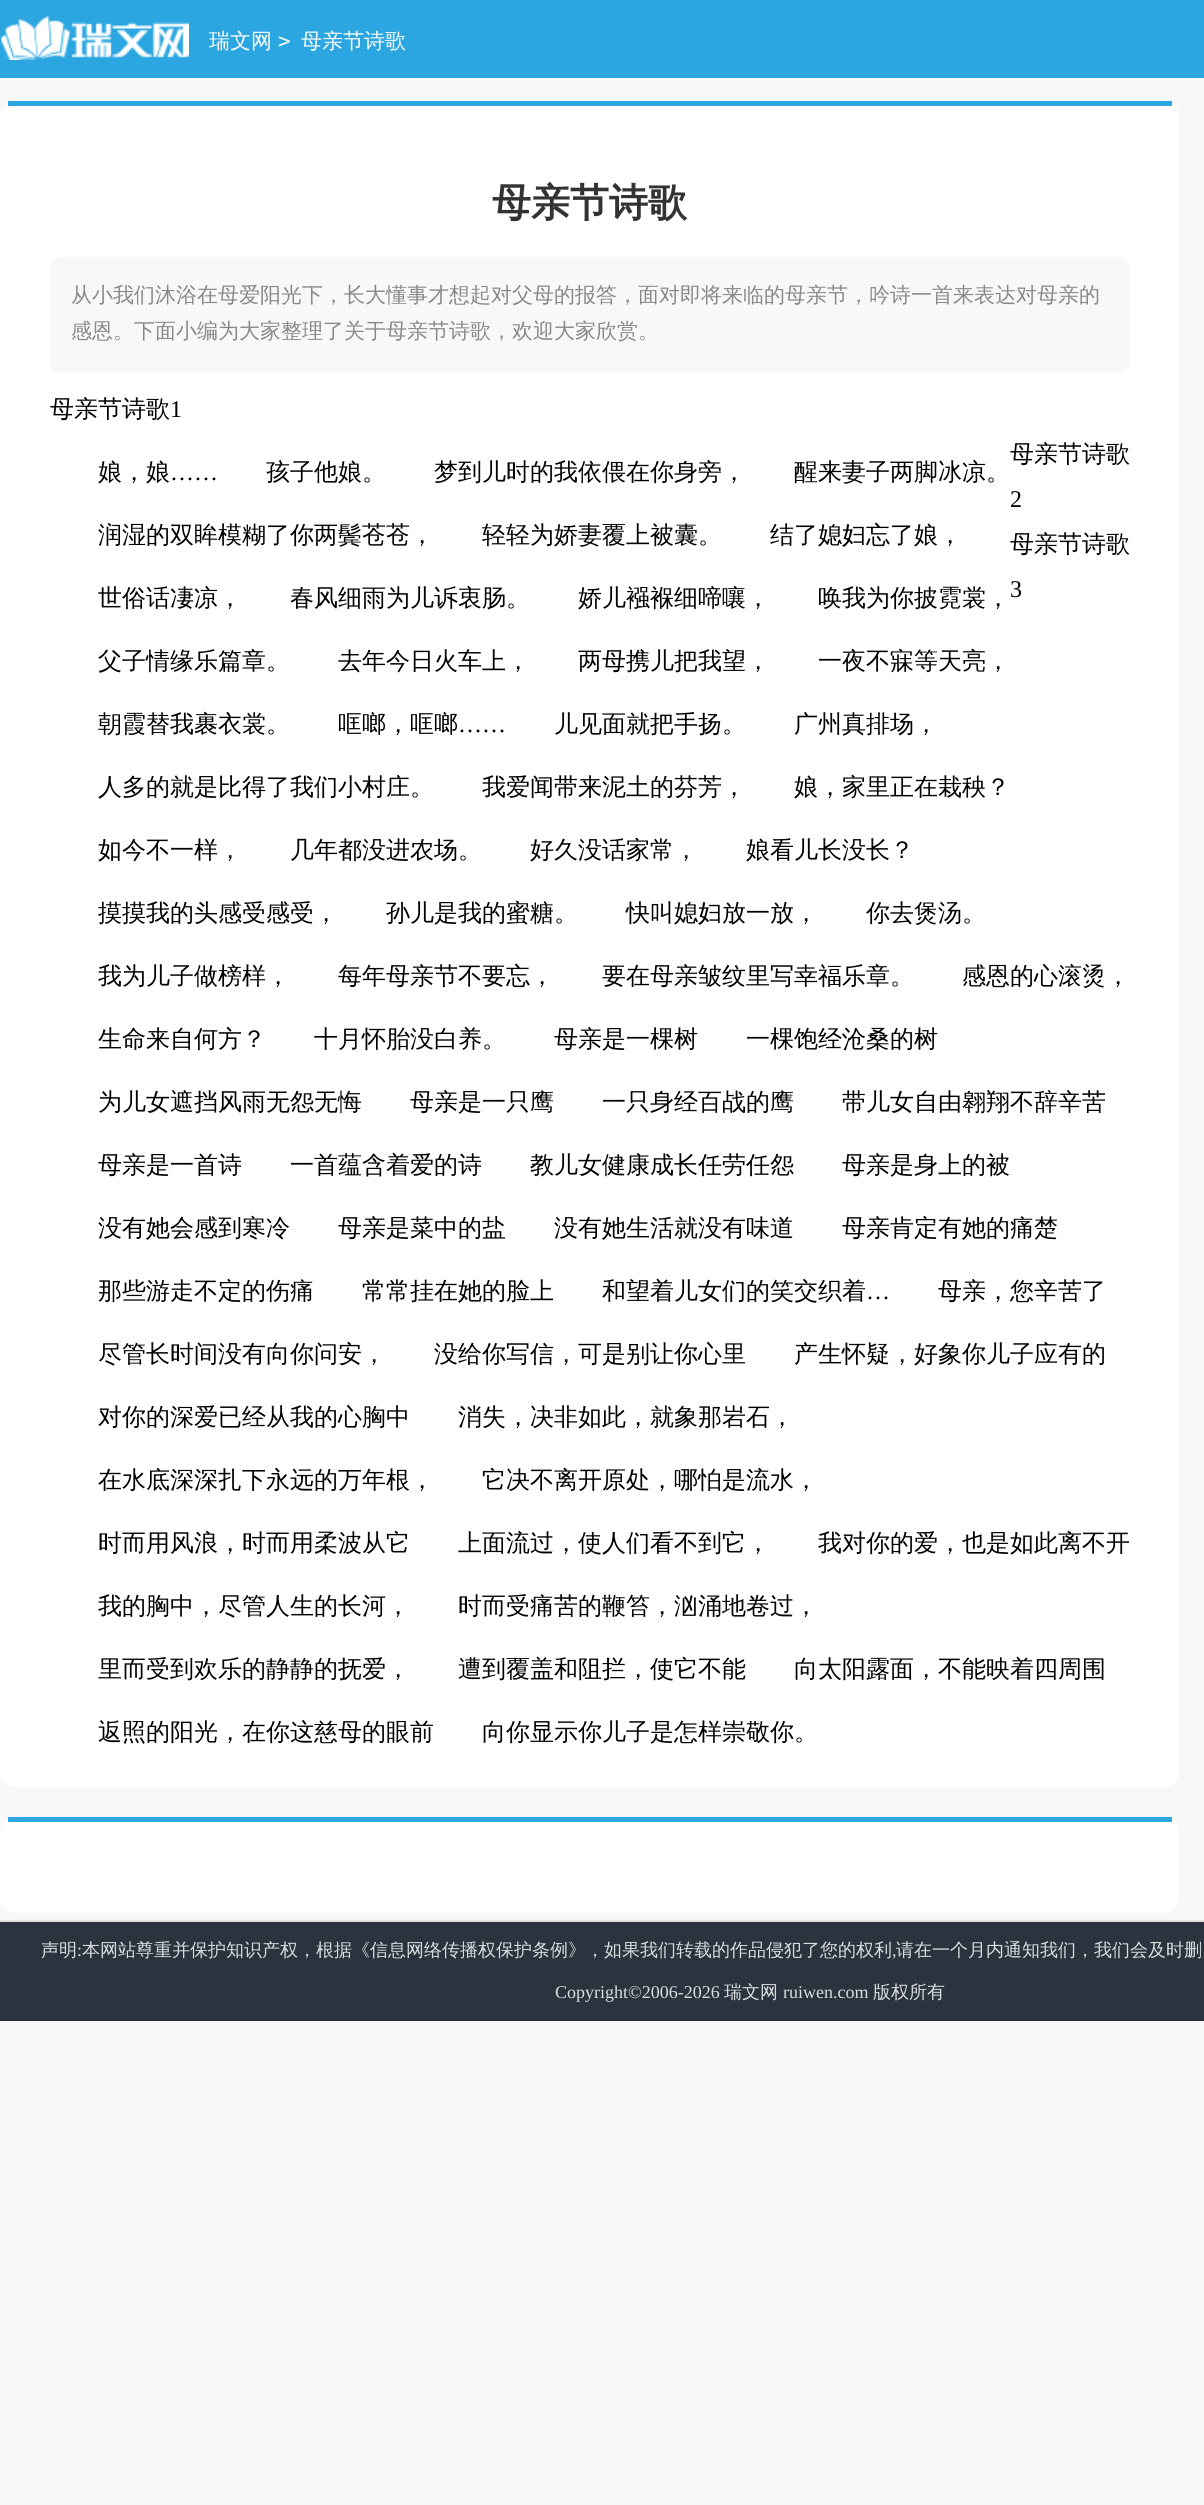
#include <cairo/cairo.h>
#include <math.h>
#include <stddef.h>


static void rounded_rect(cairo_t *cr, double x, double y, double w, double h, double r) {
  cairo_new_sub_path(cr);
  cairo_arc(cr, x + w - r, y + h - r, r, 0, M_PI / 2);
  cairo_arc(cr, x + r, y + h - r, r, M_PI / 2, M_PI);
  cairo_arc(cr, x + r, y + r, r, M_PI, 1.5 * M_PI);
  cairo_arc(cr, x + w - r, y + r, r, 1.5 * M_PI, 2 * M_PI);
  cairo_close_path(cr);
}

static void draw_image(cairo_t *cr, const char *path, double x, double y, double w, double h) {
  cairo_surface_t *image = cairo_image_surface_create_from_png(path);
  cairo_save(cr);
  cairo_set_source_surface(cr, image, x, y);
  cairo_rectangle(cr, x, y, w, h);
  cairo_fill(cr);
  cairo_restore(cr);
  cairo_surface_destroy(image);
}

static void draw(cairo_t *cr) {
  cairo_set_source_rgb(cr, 248 / 255.0, 248 / 255.0, 248 / 255.0);
  cairo_paint(cr);
  cairo_set_source_rgb(cr, 44 / 255.0, 166 / 255.0, 224 / 255.0);
  cairo_rectangle(cr, 0, 0, 1204, 78);
  cairo_fill(cr);
  draw_image(cr, "images/1.png", 0, 16, 189, 44);
  cairo_set_source_rgb(cr, 1, 1, 1);
  rounded_rect(cr, 0, 101, 1179, 1686, 15);
  cairo_fill(cr);
  cairo_set_source_rgb(cr, 44 / 255.0, 166 / 255.0, 224 / 255.0);
  cairo_rectangle(cr, 8, 101, 1164, 5);
  cairo_fill(cr);
  cairo_set_source_rgb(cr, 248 / 255.0, 248 / 255.0, 248 / 255.0);
  rounded_rect(cr, 50, 257, 1080, 115, 9);
  cairo_fill(cr);
  cairo_set_source_rgb(cr, 1, 1, 1);
  rounded_rect(cr, 0, 1817, 1179, 96, 15);
  cairo_fill(cr);
  cairo_set_source_rgb(cr, 44 / 255.0, 166 / 255.0, 224 / 255.0);
  cairo_rectangle(cr, 8, 1817, 1164, 5);
  cairo_fill(cr);
  cairo_set_source_rgb(cr, 43 / 255.0, 51 / 255.0, 62 / 255.0);
  cairo_rectangle(cr, 0, 1922, 1204, 99);
  cairo_fill(cr);
  cairo_set_source_rgb(cr, 226 / 255.0, 226 / 255.0, 226 / 255.0);
  cairo_rectangle(cr, 0, 1920, 1204, 2);
  cairo_fill(cr);
  cairo_select_font_face(cr, "WenQuanYi Zen Hei Medium", CAIRO_FONT_SLANT_NORMAL, CAIRO_FONT_WEIGHT_NORMAL);
  cairo_set_font_size(cr, 21);
  cairo_set_source_rgb(cr, 1, 1, 1);
  cairo_move_to(cr, 209, 48);
  cairo_show_text(cr, "瑞文网");
  cairo_select_font_face(cr, "DejaVu Sans Mono", CAIRO_FONT_SLANT_NORMAL, CAIRO_FONT_WEIGHT_NORMAL);
  cairo_move_to(cr, 278, 48);
  cairo_show_text(cr, ">");
  cairo_select_font_face(cr, "WenQuanYi Zen Hei Medium", CAIRO_FONT_SLANT_NORMAL, CAIRO_FONT_WEIGHT_NORMAL);
  cairo_move_to(cr, 301, 48);
  cairo_show_text(cr, "母亲节诗歌");
  cairo_select_font_face(cr, "WenQuanYi Zen Hei", CAIRO_FONT_SLANT_NORMAL, CAIRO_FONT_WEIGHT_BOLD);
  cairo_set_font_size(cr, 39);
  cairo_set_source_rgb(cr, 51 / 255.0, 51 / 255.0, 51 / 255.0);
  cairo_move_to(cr, 492, 216);
  cairo_show_text(cr, "母亲节诗歌");
  cairo_select_font_face(cr, "WenQuanYi Zen Hei Medium", CAIRO_FONT_SLANT_NORMAL, CAIRO_FONT_WEIGHT_NORMAL);
  cairo_set_font_size(cr, 21);
  cairo_set_source_rgb(cr, 136 / 255.0, 136 / 255.0, 136 / 255.0);
  cairo_move_to(cr, 71, 302);
  cairo_show_text(cr, "从小我们沐浴在母爱阳光下，长大懂事才想起对父母的报答，面对即将来临的母亲节，吟诗一首来表达对母亲的");
  cairo_move_to(cr, 71, 338);
  cairo_show_text(cr, "感恩。下面小编为大家整理了关于母亲节诗歌，欢迎大家欣赏。");
  cairo_set_font_size(cr, 24);
  cairo_set_source_rgb(cr, 0, 0, 0);
  cairo_move_to(cr, 50, 417);
  cairo_show_text(cr, "母亲节诗歌");
  cairo_select_font_face(cr, "Liberation Serif", CAIRO_FONT_SLANT_NORMAL, CAIRO_FONT_WEIGHT_NORMAL);
  cairo_move_to(cr, 170, 417);
  cairo_show_text(cr, "1");
  cairo_select_font_face(cr, "WenQuanYi Zen Hei Medium", CAIRO_FONT_SLANT_NORMAL, CAIRO_FONT_WEIGHT_NORMAL);
  cairo_move_to(cr, 98, 480);
  cairo_show_text(cr, "娘，娘");
  cairo_select_font_face(cr, "Liberation Serif", CAIRO_FONT_SLANT_NORMAL, CAIRO_FONT_WEIGHT_NORMAL);
  cairo_move_to(cr, 170, 480);
  cairo_show_text(cr, "……");
  cairo_select_font_face(cr, "WenQuanYi Zen Hei Medium", CAIRO_FONT_SLANT_NORMAL, CAIRO_FONT_WEIGHT_NORMAL);
  cairo_move_to(cr, 266, 480);
  cairo_show_text(cr, "孩子他娘。");
  cairo_move_to(cr, 434, 480);
  cairo_show_text(cr, "梦到儿时的我依偎在你身旁，");
  cairo_move_to(cr, 794, 480);
  cairo_show_text(cr, "醒来妻子两脚冰凉。");
  cairo_move_to(cr, 1010, 462);
  cairo_show_text(cr, "母亲节诗歌");
  cairo_select_font_face(cr, "Liberation Serif", CAIRO_FONT_SLANT_NORMAL, CAIRO_FONT_WEIGHT_NORMAL);
  cairo_move_to(cr, 1010, 507);
  cairo_show_text(cr, "2");
  cairo_select_font_face(cr, "WenQuanYi Zen Hei Medium", CAIRO_FONT_SLANT_NORMAL, CAIRO_FONT_WEIGHT_NORMAL);
  cairo_move_to(cr, 98, 543);
  cairo_show_text(cr, "润湿的双眸模糊了你两鬓苍苍，");
  cairo_move_to(cr, 482, 543);
  cairo_show_text(cr, "轻轻为娇妻覆上被囊。");
  cairo_move_to(cr, 770, 543);
  cairo_show_text(cr, "结了媳妇忘了娘，");
  cairo_move_to(cr, 1010, 552);
  cairo_show_text(cr, "母亲节诗歌");
  cairo_select_font_face(cr, "Liberation Serif", CAIRO_FONT_SLANT_NORMAL, CAIRO_FONT_WEIGHT_NORMAL);
  cairo_move_to(cr, 1010, 597);
  cairo_show_text(cr, "3");
  cairo_select_font_face(cr, "WenQuanYi Zen Hei Medium", CAIRO_FONT_SLANT_NORMAL, CAIRO_FONT_WEIGHT_NORMAL);
  cairo_move_to(cr, 98, 606);
  cairo_show_text(cr, "世俗话凄凉，");
  cairo_move_to(cr, 290, 606);
  cairo_show_text(cr, "春风细雨为儿诉衷肠。");
  cairo_move_to(cr, 578, 606);
  cairo_show_text(cr, "娇儿襁褓细啼嚷，");
  cairo_move_to(cr, 818, 606);
  cairo_show_text(cr, "唤我为你披霓裳，");
  cairo_move_to(cr, 98, 669);
  cairo_show_text(cr, "父子情缘乐篇章。");
  cairo_move_to(cr, 338, 669);
  cairo_show_text(cr, "去年今日火车上，");
  cairo_move_to(cr, 578, 669);
  cairo_show_text(cr, "两母携儿把我望，");
  cairo_move_to(cr, 818, 669);
  cairo_show_text(cr, "一夜不寐等天亮，");
  cairo_move_to(cr, 98, 732);
  cairo_show_text(cr, "朝霞替我裹衣裳。");
  cairo_move_to(cr, 338, 732);
  cairo_show_text(cr, "哐啷，哐啷");
  cairo_select_font_face(cr, "Liberation Serif", CAIRO_FONT_SLANT_NORMAL, CAIRO_FONT_WEIGHT_NORMAL);
  cairo_move_to(cr, 458, 732);
  cairo_show_text(cr, "……");
  cairo_select_font_face(cr, "WenQuanYi Zen Hei Medium", CAIRO_FONT_SLANT_NORMAL, CAIRO_FONT_WEIGHT_NORMAL);
  cairo_move_to(cr, 554, 732);
  cairo_show_text(cr, "儿见面就把手扬。");
  cairo_move_to(cr, 794, 732);
  cairo_show_text(cr, "广州真排场，");
  cairo_move_to(cr, 98, 795);
  cairo_show_text(cr, "人多的就是比得了我们小村庄。");
  cairo_move_to(cr, 482, 795);
  cairo_show_text(cr, "我爱闻带来泥土的芬芳，");
  cairo_move_to(cr, 794, 795);
  cairo_show_text(cr, "娘，家里正在栽秧？");
  cairo_move_to(cr, 98, 858);
  cairo_show_text(cr, "如今不一样，");
  cairo_move_to(cr, 290, 858);
  cairo_show_text(cr, "几年都没进农场。");
  cairo_move_to(cr, 530, 858);
  cairo_show_text(cr, "好久没话家常，");
  cairo_move_to(cr, 746, 858);
  cairo_show_text(cr, "娘看儿长没长？");
  cairo_move_to(cr, 98, 921);
  cairo_show_text(cr, "摸摸我的头感受感受，");
  cairo_move_to(cr, 386, 921);
  cairo_show_text(cr, "孙儿是我的蜜糖。");
  cairo_move_to(cr, 626, 921);
  cairo_show_text(cr, "快叫媳妇放一放，");
  cairo_move_to(cr, 866, 921);
  cairo_show_text(cr, "你去煲汤。");
  cairo_move_to(cr, 98, 984);
  cairo_show_text(cr, "我为儿子做榜样，");
  cairo_move_to(cr, 338, 984);
  cairo_show_text(cr, "每年母亲节不要忘，");
  cairo_move_to(cr, 602, 984);
  cairo_show_text(cr, "要在母亲皱纹里写幸福乐章。");
  cairo_move_to(cr, 962, 984);
  cairo_show_text(cr, "感恩的心滚烫，");
  cairo_move_to(cr, 98, 1047);
  cairo_show_text(cr, "生命来自何方？");
  cairo_move_to(cr, 314, 1047);
  cairo_show_text(cr, "十月怀胎没白养。");
  cairo_move_to(cr, 554, 1047);
  cairo_show_text(cr, "母亲是一棵树");
  cairo_move_to(cr, 746, 1047);
  cairo_show_text(cr, "一棵饱经沧桑的树");
  cairo_move_to(cr, 98, 1110);
  cairo_show_text(cr, "为儿女遮挡风雨无怨无悔");
  cairo_move_to(cr, 410, 1110);
  cairo_show_text(cr, "母亲是一只鹰");
  cairo_move_to(cr, 602, 1110);
  cairo_show_text(cr, "一只身经百战的鹰");
  cairo_move_to(cr, 842, 1110);
  cairo_show_text(cr, "带儿女自由翱翔不辞辛苦");
  cairo_move_to(cr, 98, 1173);
  cairo_show_text(cr, "母亲是一首诗");
  cairo_move_to(cr, 290, 1173);
  cairo_show_text(cr, "一首蕴含着爱的诗");
  cairo_move_to(cr, 530, 1173);
  cairo_show_text(cr, "教儿女健康成长任劳任怨");
  cairo_move_to(cr, 842, 1173);
  cairo_show_text(cr, "母亲是身上的被");
  cairo_move_to(cr, 98, 1236);
  cairo_show_text(cr, "没有她会感到寒冷");
  cairo_move_to(cr, 338, 1236);
  cairo_show_text(cr, "母亲是菜中的盐");
  cairo_move_to(cr, 554, 1236);
  cairo_show_text(cr, "没有她生活就没有味道");
  cairo_move_to(cr, 842, 1236);
  cairo_show_text(cr, "母亲肯定有她的痛楚");
  cairo_move_to(cr, 98, 1299);
  cairo_show_text(cr, "那些游走不定的伤痛");
  cairo_move_to(cr, 362, 1299);
  cairo_show_text(cr, "常常挂在她的脸上");
  cairo_move_to(cr, 602, 1299);
  cairo_show_text(cr, "和望着儿女们的笑交织着");
  cairo_select_font_face(cr, "Liberation Serif", CAIRO_FONT_SLANT_NORMAL, CAIRO_FONT_WEIGHT_NORMAL);
  cairo_move_to(cr, 866, 1299);
  cairo_show_text(cr, "…");
  cairo_select_font_face(cr, "WenQuanYi Zen Hei Medium", CAIRO_FONT_SLANT_NORMAL, CAIRO_FONT_WEIGHT_NORMAL);
  cairo_move_to(cr, 938, 1299);
  cairo_show_text(cr, "母亲，您辛苦了");
  cairo_move_to(cr, 98, 1362);
  cairo_show_text(cr, "尽管长时间没有向你问安，");
  cairo_move_to(cr, 434, 1362);
  cairo_show_text(cr, "没给你写信，可是别让你心里");
  cairo_move_to(cr, 794, 1362);
  cairo_show_text(cr, "产生怀疑，好象你儿子应有的");
  cairo_move_to(cr, 98, 1425);
  cairo_show_text(cr, "对你的深爱已经从我的心胸中");
  cairo_move_to(cr, 458, 1425);
  cairo_show_text(cr, "消失，决非如此，就象那岩石，");
  cairo_move_to(cr, 98, 1488);
  cairo_show_text(cr, "在水底深深扎下永远的万年根，");
  cairo_move_to(cr, 482, 1488);
  cairo_show_text(cr, "它决不离开原处，哪怕是流水，");
  cairo_move_to(cr, 98, 1551);
  cairo_show_text(cr, "时而用风浪，时而用柔波从它");
  cairo_move_to(cr, 458, 1551);
  cairo_show_text(cr, "上面流过，使人们看不到它，");
  cairo_move_to(cr, 818, 1551);
  cairo_show_text(cr, "我对你的爱，也是如此离不开");
  cairo_move_to(cr, 98, 1614);
  cairo_show_text(cr, "我的胸中，尽管人生的长河，");
  cairo_move_to(cr, 458, 1614);
  cairo_show_text(cr, "时而受痛苦的鞭笞，汹涌地卷过，");
  cairo_move_to(cr, 98, 1677);
  cairo_show_text(cr, "里而受到欢乐的静静的抚爱，");
  cairo_move_to(cr, 458, 1677);
  cairo_show_text(cr, "遭到覆盖和阻拦，使它不能");
  cairo_move_to(cr, 794, 1677);
  cairo_show_text(cr, "向太阳露面，不能映着四周围");
  cairo_move_to(cr, 98, 1740);
  cairo_show_text(cr, "返照的阳光，在你这慈母的眼前");
  cairo_move_to(cr, 482, 1740);
  cairo_show_text(cr, "向你显示你儿子是怎样崇敬你。");
  cairo_set_font_size(cr, 18);
  cairo_set_source_rgb(cr, 216 / 255.0, 221 / 255.0, 224 / 255.0);
  cairo_move_to(cr, 41, 1956);
  cairo_show_text(cr, "声明");
  cairo_select_font_face(cr, "Liberation Serif", CAIRO_FONT_SLANT_NORMAL, CAIRO_FONT_WEIGHT_NORMAL);
  cairo_move_to(cr, 77, 1956);
  cairo_show_text(cr, ":");
  cairo_select_font_face(cr, "WenQuanYi Zen Hei Medium", CAIRO_FONT_SLANT_NORMAL, CAIRO_FONT_WEIGHT_NORMAL);
  cairo_move_to(cr, 82, 1956);
  cairo_show_text(cr, "本网站尊重并保护知识产权，根据《信息网络传播权保护条例》，如果我们转载的作品侵犯了您的权利");
  cairo_select_font_face(cr, "Liberation Serif", CAIRO_FONT_SLANT_NORMAL, CAIRO_FONT_WEIGHT_NORMAL);
  cairo_move_to(cr, 892, 1956);
  cairo_show_text(cr, ",");
  cairo_select_font_face(cr, "WenQuanYi Zen Hei Medium", CAIRO_FONT_SLANT_NORMAL, CAIRO_FONT_WEIGHT_NORMAL);
  cairo_move_to(cr, 896, 1956);
  cairo_show_text(cr, "请在一个月内通知我们，我们会及时删");
  cairo_select_font_face(cr, "Liberation Serif", CAIRO_FONT_SLANT_NORMAL, CAIRO_FONT_WEIGHT_NORMAL);
  cairo_move_to(cr, 555, 1998);
  cairo_show_text(cr, "Copyright©2006-2026");
  cairo_select_font_face(cr, "WenQuanYi Zen Hei Medium", CAIRO_FONT_SLANT_NORMAL, CAIRO_FONT_WEIGHT_NORMAL);
  cairo_move_to(cr, 724, 1998);
  cairo_show_text(cr, "瑞文网");
  cairo_select_font_face(cr, "Liberation Serif", CAIRO_FONT_SLANT_NORMAL, CAIRO_FONT_WEIGHT_NORMAL);
  cairo_move_to(cr, 783, 1998);
  cairo_show_text(cr, "ruiwen.com");
  cairo_select_font_face(cr, "WenQuanYi Zen Hei Medium", CAIRO_FONT_SLANT_NORMAL, CAIRO_FONT_WEIGHT_NORMAL);
  cairo_move_to(cr, 873, 1998);
  cairo_show_text(cr, "版权所有");
}

int main(void) {
  cairo_surface_t *surface = cairo_image_surface_create(CAIRO_FORMAT_RGB24, 1204, 2505);
  cairo_t *cr = cairo_create(surface);
  cairo_font_options_t *options = cairo_font_options_create();
  cairo_font_options_set_hint_metrics(options, CAIRO_HINT_METRICS_OFF);
  cairo_font_options_set_hint_style(options, CAIRO_HINT_STYLE_NONE);
  cairo_set_font_options(cr, options);
  cairo_set_miter_limit(cr, 4);
  draw(cr);
  cairo_surface_write_to_png(surface, "out.png");
  cairo_font_options_destroy(options);
  cairo_destroy(cr);
  cairo_surface_destroy(surface);
  return 0;
}
